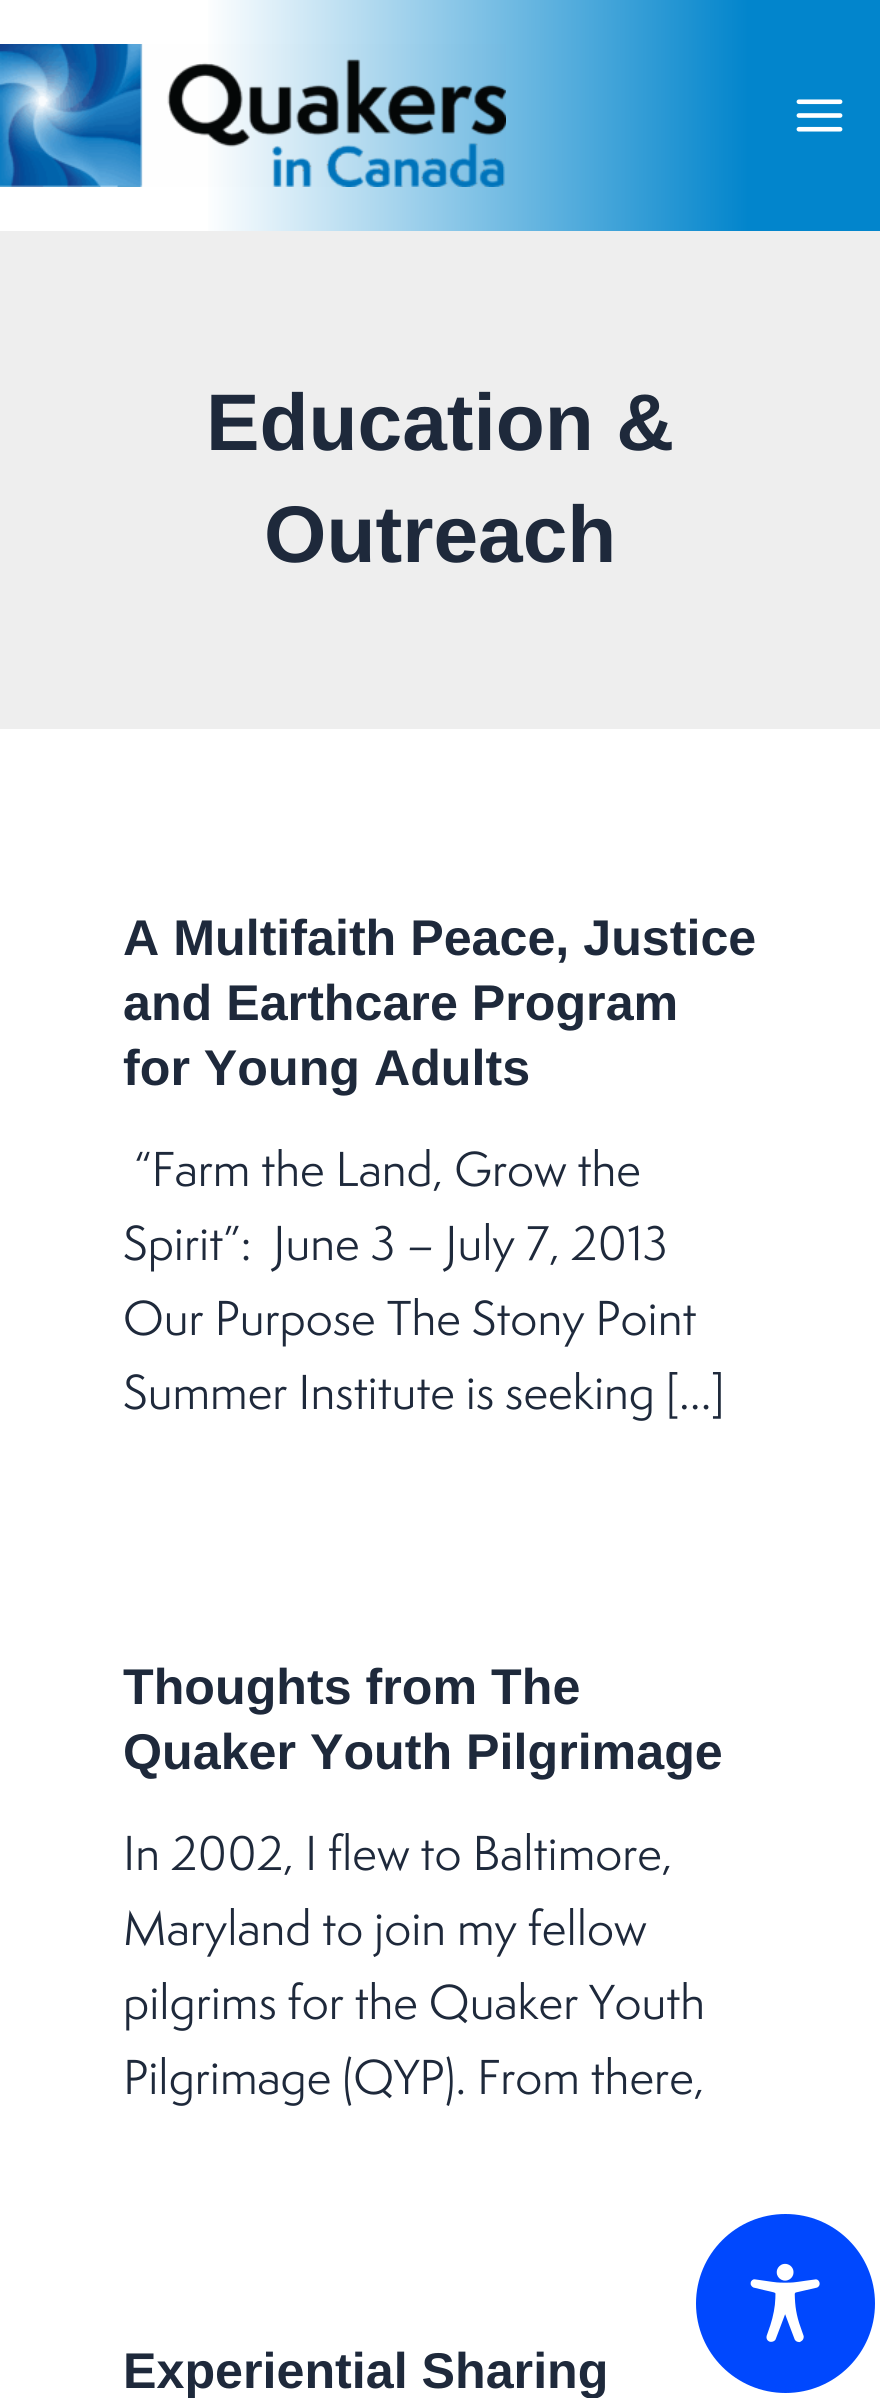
#include <cairo/cairo.h>
#include <math.h>
#include <stddef.h>


static void draw_image(cairo_t *cr, const char *path, double x, double y, double w, double h) {
  cairo_surface_t *image = cairo_image_surface_create_from_png(path);
  cairo_save(cr);
  cairo_set_source_surface(cr, image, x, y);
  cairo_rectangle(cr, x, y, w, h);
  cairo_fill(cr);
  cairo_restore(cr);
  cairo_surface_destroy(image);
}

static void draw(cairo_t *cr) {
  cairo_pattern_t *gradient;
  cairo_set_source_rgb(cr, 1, 1, 1);
  cairo_paint(cr);
  gradient = cairo_pattern_create_linear(0, 116, 880, 115);
  cairo_pattern_add_color_stop_rgba(gradient, 0.23, 1, 1, 1, 1);
  cairo_pattern_add_color_stop_rgba(gradient, 0.85, 2 / 255.0, 133 / 255.0, 204 / 255.0, 1);
  cairo_set_source(cr, gradient);
  cairo_pattern_destroy(gradient);
  cairo_rectangle(cr, 208, 0, 672, 231);
  cairo_fill(cr);
  draw_image(cr, "images/1.png", 0, 44, 506, 143);
  draw_image(cr, "images/2.png", 796, 99, 47, 33);
  cairo_set_source_rgb(cr, 238 / 255.0, 238 / 255.0, 238 / 255.0);
  cairo_rectangle(cr, 0, 231, 880, 498);
  cairo_fill(cr);
  cairo_set_source_rgb(cr, 0, 72 / 255.0, 254 / 255.0);
  cairo_arc(cr, 785.5, 2303.5, 89.5, 0, 2 * M_PI);
  cairo_fill(cr);
  draw_image(cr, "images/3.png", 750, 2263, 70, 80);
  cairo_select_font_face(cr, "Liberation Sans", CAIRO_FONT_SLANT_NORMAL, CAIRO_FONT_WEIGHT_BOLD);
  cairo_set_font_size(cr, 80.25);
  cairo_set_source_rgb(cr, 30 / 255.0, 41 / 255.0, 59 / 255.0);
  cairo_move_to(cr, 206, 450);
  cairo_show_text(cr, "Education &");
  cairo_move_to(cr, 264, 562);
  cairo_show_text(cr, "Outreach");
  cairo_set_font_size(cr, 50.2);
  cairo_move_to(cr, 123, 955);
  cairo_show_text(cr, "A Multifaith Peace, Justice");
  cairo_move_to(cr, 123, 1020);
  cairo_show_text(cr, "and Earthcare Program");
  cairo_move_to(cr, 123, 1085);
  cairo_show_text(cr, "for Young Adults");
  cairo_select_font_face(cr, "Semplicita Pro", CAIRO_FONT_SLANT_NORMAL, CAIRO_FONT_WEIGHT_NORMAL);
  cairo_set_font_size(cr, 45.1);
  cairo_move_to(cr, 134, 1186);
  cairo_show_text(cr, "“Farm the Land, Grow the");
  cairo_move_to(cr, 123, 1260);
  cairo_show_text(cr, "Spirit”:  June 3 – July 7, 2013");
  cairo_move_to(cr, 123, 1335);
  cairo_show_text(cr, "Our Purpose The Stony Point");
  cairo_move_to(cr, 123, 1409);
  cairo_show_text(cr, "Summer Institute is seeking […]");
  cairo_select_font_face(cr, "Liberation Sans", CAIRO_FONT_SLANT_NORMAL, CAIRO_FONT_WEIGHT_BOLD);
  cairo_set_font_size(cr, 50.2);
  cairo_move_to(cr, 123, 1704);
  cairo_show_text(cr, "Thoughts from The");
  cairo_move_to(cr, 123, 1769);
  cairo_show_text(cr, "Quaker Youth Pilgrimage");
  cairo_select_font_face(cr, "Semplicita Pro", CAIRO_FONT_SLANT_NORMAL, CAIRO_FONT_WEIGHT_NORMAL);
  cairo_set_font_size(cr, 45.1);
  cairo_move_to(cr, 123, 1870);
  cairo_show_text(cr, "In 2002, I flew to Baltimore,");
  cairo_move_to(cr, 123, 1945);
  cairo_show_text(cr, "Maryland to join my fellow");
  cairo_move_to(cr, 123, 2019);
  cairo_show_text(cr, "pilgrims for the Quaker Youth");
  cairo_move_to(cr, 123, 2094);
  cairo_show_text(cr, "Pilgrimage (QYP). From there,");
  cairo_select_font_face(cr, "Liberation Sans", CAIRO_FONT_SLANT_NORMAL, CAIRO_FONT_WEIGHT_BOLD);
  cairo_set_font_size(cr, 50.2);
  cairo_move_to(cr, 123, 2388);
  cairo_show_text(cr, "Experiential Sharing");
}

int main(void) {
  cairo_surface_t *surface = cairo_image_surface_create(CAIRO_FORMAT_RGB24, 880, 2398);
  cairo_t *cr = cairo_create(surface);
  cairo_font_options_t *options = cairo_font_options_create();
  cairo_font_options_set_hint_metrics(options, CAIRO_HINT_METRICS_OFF);
  cairo_font_options_set_hint_style(options, CAIRO_HINT_STYLE_NONE);
  cairo_set_font_options(cr, options);
  cairo_set_miter_limit(cr, 4);
  draw(cr);
  cairo_surface_write_to_png(surface, "out.png");
  cairo_font_options_destroy(options);
  cairo_destroy(cr);
  cairo_surface_destroy(surface);
  return 0;
}
